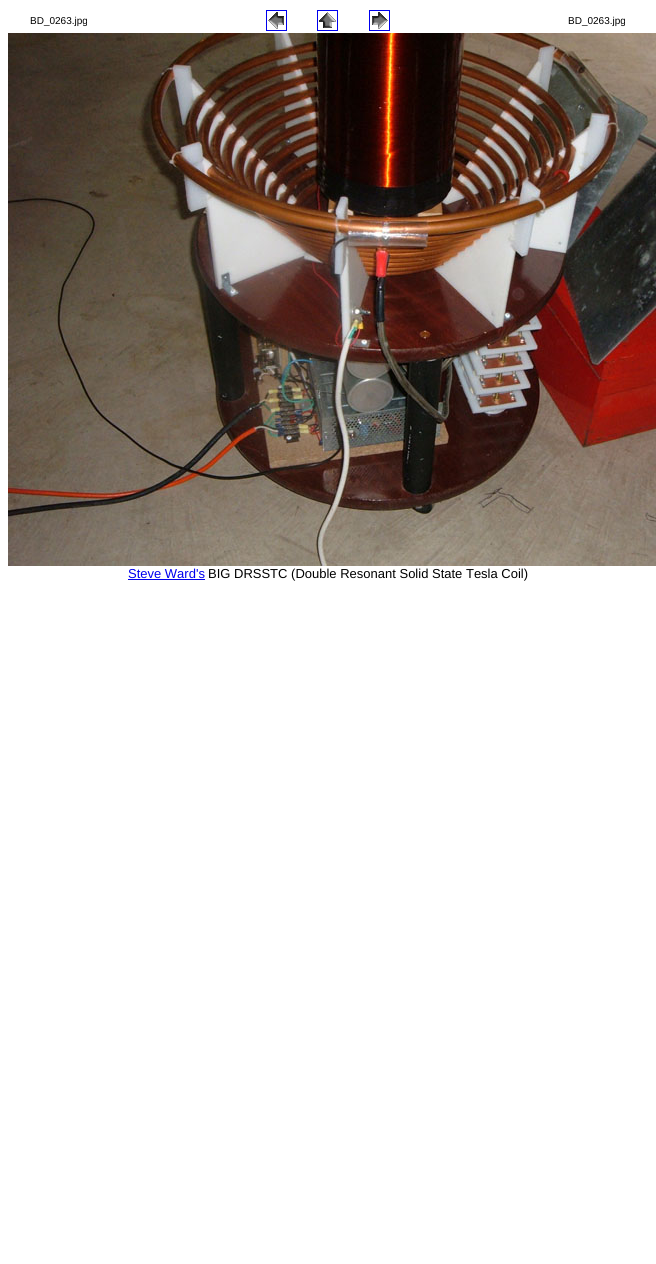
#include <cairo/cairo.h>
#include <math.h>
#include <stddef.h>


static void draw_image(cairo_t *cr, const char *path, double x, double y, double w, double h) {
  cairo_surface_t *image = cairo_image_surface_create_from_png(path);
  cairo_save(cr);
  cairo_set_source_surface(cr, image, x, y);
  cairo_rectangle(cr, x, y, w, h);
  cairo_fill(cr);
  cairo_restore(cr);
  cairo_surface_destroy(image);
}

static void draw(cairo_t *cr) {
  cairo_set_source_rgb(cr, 1, 1, 1);
  cairo_paint(cr);
  cairo_rectangle(cr, 266.5, 10.5, 20, 20);
  cairo_set_source_rgb(cr, 0, 0, 238 / 255.0);
  cairo_set_line_width(cr, 1);
  cairo_stroke(cr);
  draw_image(cr, "images/1.png", 268, 12, 16, 17);
  cairo_rectangle(cr, 317.5, 10.5, 20, 20);
  cairo_stroke(cr);
  draw_image(cr, "images/2.png", 319, 12, 17, 16);
  cairo_rectangle(cr, 369.5, 10.5, 20, 20);
  cairo_stroke(cr);
  draw_image(cr, "images/3.png", 372, 12, 16, 17);
  draw_image(cr, "images/4.png", 8, 33, 648, 533);
  cairo_rectangle(cr, 128, 579, 77, 1);
  cairo_fill(cr);
  cairo_select_font_face(cr, "Liberation Sans", CAIRO_FONT_SLANT_NORMAL, CAIRO_FONT_WEIGHT_NORMAL);
  cairo_set_font_size(cr, 10);
  cairo_set_source_rgb(cr, 0, 0, 0);
  cairo_move_to(cr, 30, 24);
  cairo_show_text(cr, "BD_0263.jpg");
  cairo_move_to(cr, 568, 24);
  cairo_show_text(cr, "BD_0263.jpg");
  cairo_set_font_size(cr, 13);
  cairo_set_source_rgb(cr, 0, 0, 238 / 255.0);
  cairo_move_to(cr, 128, 578);
  cairo_show_text(cr, "Steve Ward's");
  cairo_set_source_rgb(cr, 0, 0, 0);
  cairo_move_to(cr, 208, 578);
  cairo_show_text(cr, "BIG DRSSTC (Double Resonant Solid State Tesla Coil)");
}

int main(void) {
  cairo_surface_t *surface = cairo_image_surface_create(CAIRO_FORMAT_RGB24, 656, 1264);
  cairo_t *cr = cairo_create(surface);
  cairo_font_options_t *options = cairo_font_options_create();
  cairo_font_options_set_hint_metrics(options, CAIRO_HINT_METRICS_OFF);
  cairo_font_options_set_hint_style(options, CAIRO_HINT_STYLE_NONE);
  cairo_set_font_options(cr, options);
  cairo_set_miter_limit(cr, 4);
  draw(cr);
  cairo_surface_write_to_png(surface, "out.png");
  cairo_font_options_destroy(options);
  cairo_destroy(cr);
  cairo_surface_destroy(surface);
  return 0;
}
